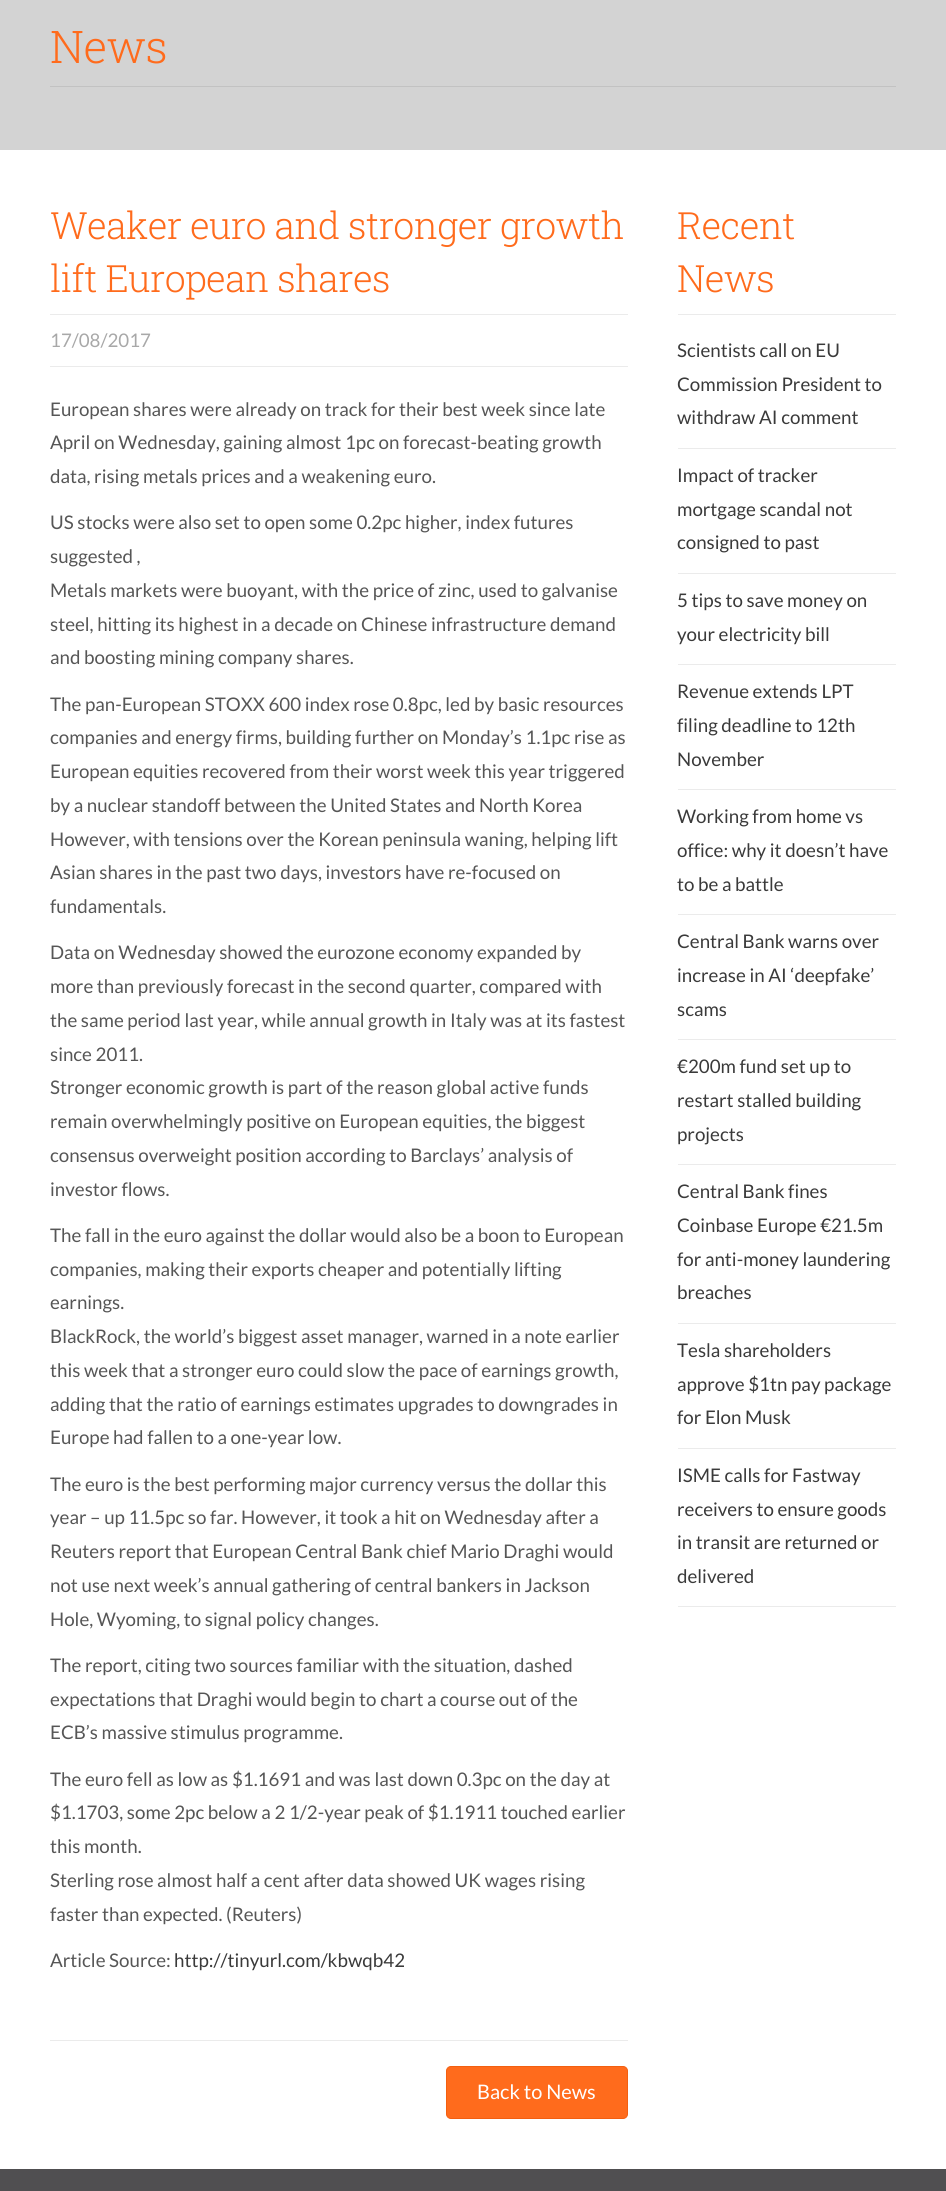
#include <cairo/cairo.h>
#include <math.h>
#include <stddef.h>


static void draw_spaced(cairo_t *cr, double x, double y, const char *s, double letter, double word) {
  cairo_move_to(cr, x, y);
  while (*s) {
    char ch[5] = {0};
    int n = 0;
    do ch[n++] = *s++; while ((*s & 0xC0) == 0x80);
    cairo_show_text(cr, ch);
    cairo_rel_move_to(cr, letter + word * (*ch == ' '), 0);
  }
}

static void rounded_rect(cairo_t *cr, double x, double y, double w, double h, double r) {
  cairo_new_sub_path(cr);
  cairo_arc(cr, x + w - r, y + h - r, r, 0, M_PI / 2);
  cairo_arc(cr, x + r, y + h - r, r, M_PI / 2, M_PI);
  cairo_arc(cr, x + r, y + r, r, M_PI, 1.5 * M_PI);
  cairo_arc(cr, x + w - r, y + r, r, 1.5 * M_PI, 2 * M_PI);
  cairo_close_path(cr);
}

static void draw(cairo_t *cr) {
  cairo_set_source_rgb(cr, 1, 1, 1);
  cairo_paint(cr);
  cairo_set_source_rgb(cr, 211 / 255.0, 211 / 255.0, 211 / 255.0);
  cairo_rectangle(cr, 0, 0, 946, 150);
  cairo_fill(cr);
  cairo_set_source_rgb(cr, 194 / 255.0, 194 / 255.0, 194 / 255.0);
  cairo_rectangle(cr, 50, 86, 846, 1);
  cairo_fill(cr);
  cairo_set_source_rgb(cr, 235 / 255.0, 235 / 255.0, 235 / 255.0);
  cairo_rectangle(cr, 50, 314, 578, 1);
  cairo_fill(cr);
  cairo_rectangle(cr, 50, 366, 578, 1);
  cairo_fill(cr);
  cairo_rectangle(cr, 50, 2040, 578, 1);
  cairo_fill(cr);
  cairo_set_source_rgb(cr, 1, 107 / 255.0, 28 / 255.0);
  rounded_rect(cr, 446.5, 2066.5, 181, 52, 4.5);
  cairo_fill_preserve(cr);
  cairo_set_source_rgb(cr, 243 / 255.0, 95 / 255.0, 16 / 255.0);
  cairo_set_line_width(cr, 1);
  cairo_stroke(cr);
  cairo_set_source_rgb(cr, 235 / 255.0, 235 / 255.0, 235 / 255.0);
  cairo_rectangle(cr, 678, 314, 218, 1);
  cairo_fill(cr);
  cairo_rectangle(cr, 678, 448, 218, 1);
  cairo_fill(cr);
  cairo_rectangle(cr, 678, 573, 218, 1);
  cairo_fill(cr);
  cairo_rectangle(cr, 678, 664, 218, 1);
  cairo_fill(cr);
  cairo_rectangle(cr, 678, 789, 218, 1);
  cairo_fill(cr);
  cairo_rectangle(cr, 678, 914, 218, 1);
  cairo_fill(cr);
  cairo_rectangle(cr, 678, 1039, 218, 1);
  cairo_fill(cr);
  cairo_rectangle(cr, 678, 1164, 218, 1);
  cairo_fill(cr);
  cairo_rectangle(cr, 678, 1323, 218, 1);
  cairo_fill(cr);
  cairo_rectangle(cr, 678, 1448, 218, 1);
  cairo_fill(cr);
  cairo_rectangle(cr, 678, 1606, 218, 1);
  cairo_fill(cr);
  cairo_set_source_rgb(cr, 80 / 255.0, 79 / 255.0, 81 / 255.0);
  cairo_rectangle(cr, 0, 2169, 946, 22);
  cairo_fill(cr);
  cairo_select_font_face(cr, "Roboto Slab Light", CAIRO_FONT_SLANT_NORMAL, CAIRO_FONT_WEIGHT_NORMAL);
  cairo_set_font_size(cr, 45);
  cairo_set_source_rgb(cr, 1, 107 / 255.0, 28 / 255.0);
  draw_spaced(cr, 50, 63, "News", -0.6, 0);
  cairo_set_font_size(cr, 37.5);
  draw_spaced(cr, 50, 239, "Weaker euro and stronger growth", -0.6, 0);
  draw_spaced(cr, 50, 292, "lift European shares", -0.6, 0);
  cairo_select_font_face(cr, "Lato", CAIRO_FONT_SLANT_NORMAL, CAIRO_FONT_WEIGHT_NORMAL);
  cairo_set_font_size(cr, 18.75);
  cairo_set_source_rgb(cr, 168 / 255.0, 168 / 255.0, 168 / 255.0);
  cairo_move_to(cr, 50, 347);
  cairo_show_text(cr, "17/08/2017");
  cairo_set_source_rgb(cr, 86 / 255.0, 86 / 255.0, 86 / 255.0);
  cairo_move_to(cr, 50, 416);
  cairo_show_text(cr, "European shares were already on track for their best week since late");
  cairo_move_to(cr, 50, 449);
  cairo_show_text(cr, "April on Wednesday, gaining almost 1pc on forecast-beating growth");
  cairo_move_to(cr, 50, 483);
  cairo_show_text(cr, "data, rising metals prices and a weakening euro.");
  cairo_move_to(cr, 50, 529);
  cairo_show_text(cr, "US stocks were also set to open some 0.2pc higher, index futures");
  cairo_move_to(cr, 50, 563);
  cairo_show_text(cr, "suggested ,");
  cairo_move_to(cr, 50, 597);
  cairo_show_text(cr, "Metals markets were buoyant, with the price of zinc, used to galvanise");
  cairo_move_to(cr, 50, 631);
  cairo_show_text(cr, "steel, hitting its highest in a decade on Chinese infrastructure demand");
  cairo_move_to(cr, 50, 664);
  cairo_show_text(cr, "and boosting mining company shares.");
  cairo_move_to(cr, 50, 711);
  cairo_show_text(cr, "The pan-European STOXX 600 index rose 0.8pc, led by basic resources");
  cairo_move_to(cr, 50, 744);
  cairo_show_text(cr, "companies and energy firms, building further on Monday’s 1.1pc rise as");
  cairo_move_to(cr, 50, 778);
  cairo_show_text(cr, "European equities recovered from their worst week this year triggered");
  cairo_move_to(cr, 50, 812);
  cairo_show_text(cr, "by a nuclear standoff between the United States and North Korea");
  cairo_move_to(cr, 50, 846);
  cairo_show_text(cr, "However, with tensions over the Korean peninsula waning, helping lift");
  cairo_move_to(cr, 50, 879);
  cairo_show_text(cr, "Asian shares in the past two days, investors have re-focused on");
  cairo_move_to(cr, 50, 913);
  cairo_show_text(cr, "fundamentals.");
  cairo_move_to(cr, 50, 959);
  cairo_show_text(cr, "Data on Wednesday showed the eurozone economy expanded by");
  cairo_move_to(cr, 50, 993);
  cairo_show_text(cr, "more than previously forecast in the second quarter, compared with");
  cairo_move_to(cr, 50, 1027);
  cairo_show_text(cr, "the same period last year, while annual growth in Italy was at its fastest");
  cairo_move_to(cr, 50, 1061);
  cairo_show_text(cr, "since 2011.");
  cairo_move_to(cr, 50, 1094);
  cairo_show_text(cr, "Stronger economic growth is part of the reason global active funds");
  cairo_move_to(cr, 50, 1128);
  cairo_show_text(cr, "remain overwhelmingly positive on European equities, the biggest");
  cairo_move_to(cr, 50, 1162);
  cairo_show_text(cr, "consensus overweight position according to Barclays’ analysis of");
  cairo_move_to(cr, 50, 1196);
  cairo_show_text(cr, "investor flows.");
  cairo_move_to(cr, 50, 1242);
  cairo_show_text(cr, "The fall in the euro against the dollar would also be a boon to European");
  cairo_move_to(cr, 50, 1276);
  cairo_show_text(cr, "companies, making their exports cheaper and potentially lifting");
  cairo_move_to(cr, 50, 1309);
  cairo_show_text(cr, "earnings.");
  cairo_move_to(cr, 50, 1343);
  cairo_show_text(cr, "BlackRock, the world’s biggest asset manager, warned in a note earlier");
  cairo_move_to(cr, 50, 1377);
  cairo_show_text(cr, "this week that a stronger euro could slow the pace of earnings growth,");
  cairo_move_to(cr, 50, 1411);
  cairo_show_text(cr, "adding that the ratio of earnings estimates upgrades to downgrades in");
  cairo_move_to(cr, 50, 1444);
  cairo_show_text(cr, "Europe had fallen to a one-year low.");
  cairo_move_to(cr, 50, 1491);
  cairo_show_text(cr, "The euro is the best performing major currency versus the dollar this");
  cairo_move_to(cr, 50, 1524);
  cairo_show_text(cr, "year – up 11.5pc so far. However, it took a hit on Wednesday after a");
  cairo_move_to(cr, 50, 1558);
  cairo_show_text(cr, "Reuters report that European Central Bank chief Mario Draghi would");
  cairo_move_to(cr, 50, 1592);
  cairo_show_text(cr, "not use next week’s annual gathering of central bankers in Jackson");
  cairo_move_to(cr, 50, 1626);
  cairo_show_text(cr, "Hole, Wyoming, to signal policy changes.");
  cairo_move_to(cr, 50, 1672);
  cairo_show_text(cr, "The report, citing two sources familiar with the situation, dashed");
  cairo_move_to(cr, 50, 1706);
  cairo_show_text(cr, "expectations that Draghi would begin to chart a course out of the");
  cairo_move_to(cr, 50, 1739);
  cairo_show_text(cr, "ECB’s massive stimulus programme.");
  cairo_move_to(cr, 50, 1786);
  cairo_show_text(cr, "The euro fell as low as $1.1691 and was last down 0.3pc on the day at");
  cairo_move_to(cr, 50, 1819);
  cairo_show_text(cr, "$1.1703, some 2pc below a 2 1/2-year peak of $1.1911 touched earlier");
  cairo_move_to(cr, 50, 1853);
  cairo_show_text(cr, "this month.");
  cairo_move_to(cr, 50, 1887);
  cairo_show_text(cr, "Sterling rose almost half a cent after data showed UK wages rising");
  cairo_move_to(cr, 50, 1921);
  cairo_show_text(cr, "faster than expected. (Reuters)");
  cairo_move_to(cr, 50, 1967);
  cairo_show_text(cr, "Article Source:");
  cairo_set_source_rgb(cr, 58 / 255.0, 58 / 255.0, 58 / 255.0);
  cairo_move_to(cr, 174, 1967);
  cairo_show_text(cr, "http://tinyurl.com/kbwqb42");
  cairo_set_font_size(cr, 20);
  cairo_set_source_rgb(cr, 1, 1, 1);
  cairo_move_to(cr, 477, 2099);
  cairo_show_text(cr, "Back to News");
  cairo_select_font_face(cr, "Roboto Slab Light", CAIRO_FONT_SLANT_NORMAL, CAIRO_FONT_WEIGHT_NORMAL);
  cairo_set_font_size(cr, 37.5);
  cairo_set_source_rgb(cr, 1, 107 / 255.0, 28 / 255.0);
  draw_spaced(cr, 677, 239, "Recent", -0.6, 0);
  draw_spaced(cr, 677, 292, "News", -0.6, 0);
  cairo_select_font_face(cr, "Lato", CAIRO_FONT_SLANT_NORMAL, CAIRO_FONT_WEIGHT_NORMAL);
  cairo_set_font_size(cr, 18.75);
  cairo_set_source_rgb(cr, 58 / 255.0, 58 / 255.0, 58 / 255.0);
  cairo_move_to(cr, 677, 357);
  cairo_show_text(cr, "Scientists call on EU");
  cairo_move_to(cr, 677, 391);
  cairo_show_text(cr, "Commission President to");
  cairo_move_to(cr, 677, 424);
  cairo_show_text(cr, "withdraw AI comment");
  cairo_move_to(cr, 677, 482);
  cairo_show_text(cr, "Impact of tracker");
  cairo_move_to(cr, 677, 516);
  cairo_show_text(cr, "mortgage scandal not");
  cairo_move_to(cr, 677, 549);
  cairo_show_text(cr, "consigned to past");
  cairo_move_to(cr, 677, 607);
  cairo_show_text(cr, "5 tips to save money on");
  cairo_move_to(cr, 677, 641);
  cairo_show_text(cr, "your electricity bill");
  cairo_move_to(cr, 677, 698);
  cairo_show_text(cr, "Revenue extends LPT");
  cairo_move_to(cr, 677, 732);
  cairo_show_text(cr, "filing deadline to 12th");
  cairo_move_to(cr, 677, 766);
  cairo_show_text(cr, "November");
  cairo_move_to(cr, 677, 823);
  cairo_show_text(cr, "Working from home vs");
  cairo_move_to(cr, 677, 857);
  cairo_show_text(cr, "office: why it doesn’t have");
  cairo_move_to(cr, 677, 891);
  cairo_show_text(cr, "to be a battle");
  cairo_move_to(cr, 677, 948);
  cairo_show_text(cr, "Central Bank warns over");
  cairo_move_to(cr, 677, 982);
  cairo_show_text(cr, "increase in AI ‘deepfake’");
  cairo_move_to(cr, 677, 1016);
  cairo_show_text(cr, "scams");
  cairo_move_to(cr, 677, 1073);
  cairo_show_text(cr, "€200m fund set up to");
  cairo_move_to(cr, 677, 1107);
  cairo_show_text(cr, "restart stalled building");
  cairo_move_to(cr, 677, 1141);
  cairo_show_text(cr, "projects");
  cairo_move_to(cr, 677, 1198);
  cairo_show_text(cr, "Central Bank fines");
  cairo_move_to(cr, 677, 1232);
  cairo_show_text(cr, "Coinbase Europe €21.5m");
  cairo_move_to(cr, 677, 1266);
  cairo_show_text(cr, "for anti-money laundering");
  cairo_move_to(cr, 677, 1299);
  cairo_show_text(cr, "breaches");
  cairo_move_to(cr, 677, 1357);
  cairo_show_text(cr, "Tesla shareholders");
  cairo_move_to(cr, 677, 1391);
  cairo_show_text(cr, "approve $1tn pay package");
  cairo_move_to(cr, 677, 1424);
  cairo_show_text(cr, "for Elon Musk");
  cairo_move_to(cr, 677, 1482);
  cairo_show_text(cr, "ISME calls for Fastway");
  cairo_move_to(cr, 677, 1516);
  cairo_show_text(cr, "receivers to ensure goods");
  cairo_move_to(cr, 677, 1549);
  cairo_show_text(cr, "in transit are returned or");
  cairo_move_to(cr, 677, 1583);
  cairo_show_text(cr, "delivered");
}

int main(void) {
  cairo_surface_t *surface = cairo_image_surface_create(CAIRO_FORMAT_RGB24, 946, 2191);
  cairo_t *cr = cairo_create(surface);
  cairo_font_options_t *options = cairo_font_options_create();
  cairo_font_options_set_hint_metrics(options, CAIRO_HINT_METRICS_OFF);
  cairo_font_options_set_hint_style(options, CAIRO_HINT_STYLE_NONE);
  cairo_set_font_options(cr, options);
  cairo_set_miter_limit(cr, 4);
  draw(cr);
  cairo_surface_write_to_png(surface, "out.png");
  cairo_font_options_destroy(options);
  cairo_destroy(cr);
  cairo_surface_destroy(surface);
  return 0;
}
